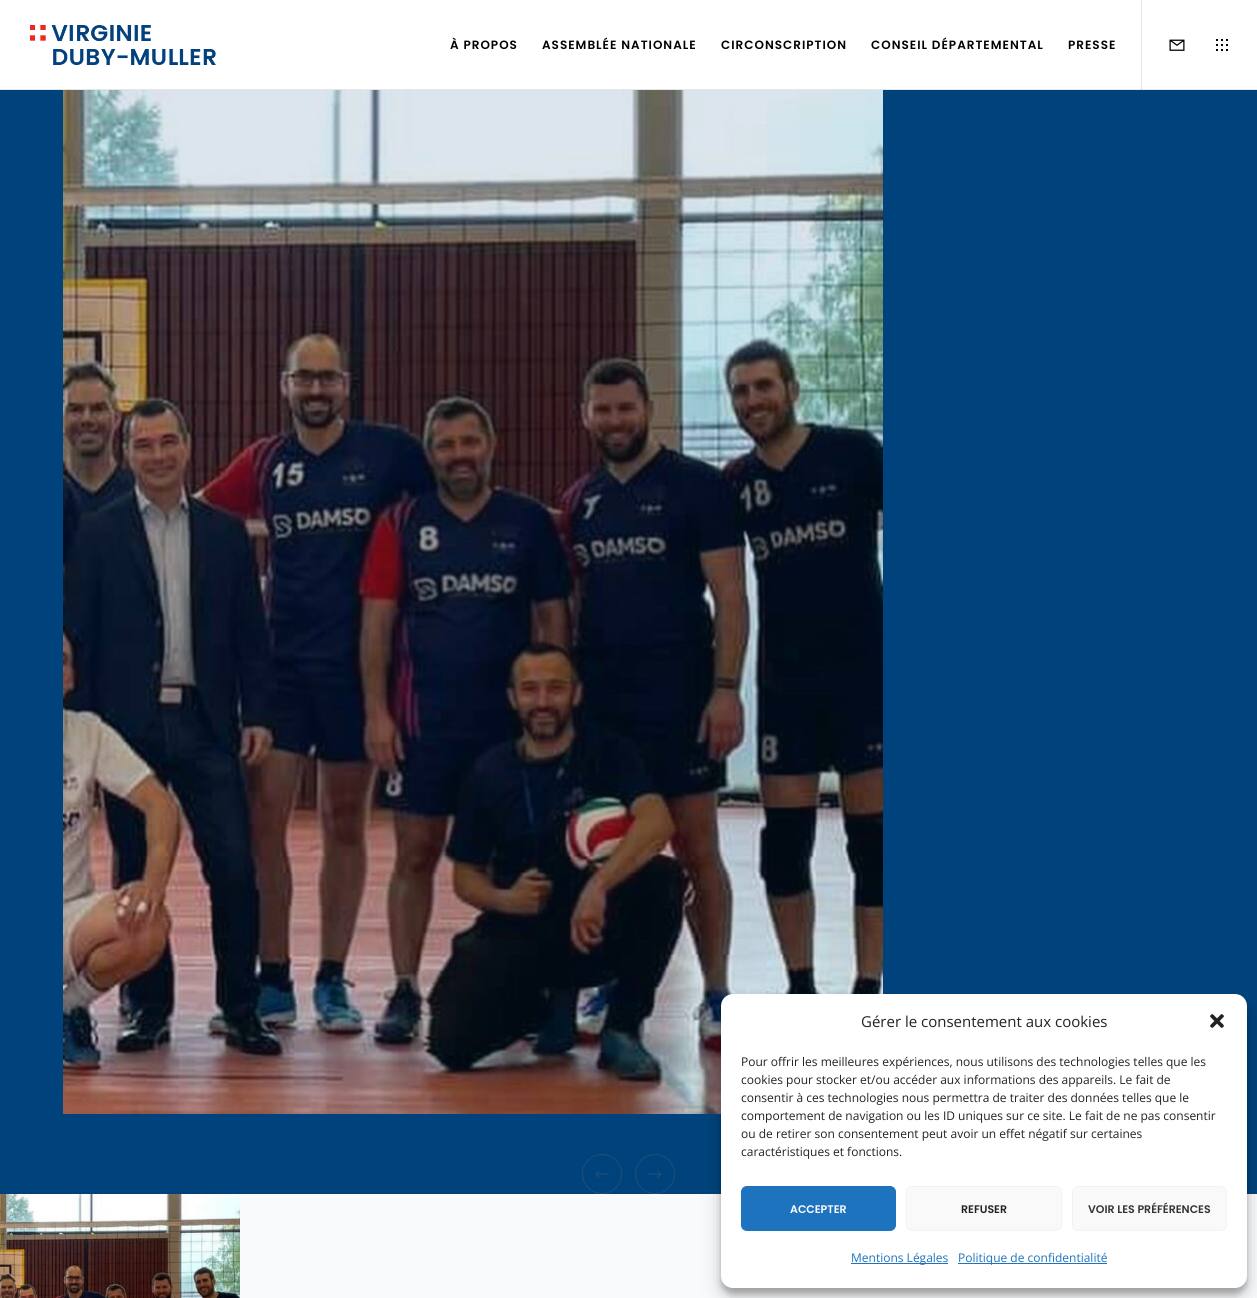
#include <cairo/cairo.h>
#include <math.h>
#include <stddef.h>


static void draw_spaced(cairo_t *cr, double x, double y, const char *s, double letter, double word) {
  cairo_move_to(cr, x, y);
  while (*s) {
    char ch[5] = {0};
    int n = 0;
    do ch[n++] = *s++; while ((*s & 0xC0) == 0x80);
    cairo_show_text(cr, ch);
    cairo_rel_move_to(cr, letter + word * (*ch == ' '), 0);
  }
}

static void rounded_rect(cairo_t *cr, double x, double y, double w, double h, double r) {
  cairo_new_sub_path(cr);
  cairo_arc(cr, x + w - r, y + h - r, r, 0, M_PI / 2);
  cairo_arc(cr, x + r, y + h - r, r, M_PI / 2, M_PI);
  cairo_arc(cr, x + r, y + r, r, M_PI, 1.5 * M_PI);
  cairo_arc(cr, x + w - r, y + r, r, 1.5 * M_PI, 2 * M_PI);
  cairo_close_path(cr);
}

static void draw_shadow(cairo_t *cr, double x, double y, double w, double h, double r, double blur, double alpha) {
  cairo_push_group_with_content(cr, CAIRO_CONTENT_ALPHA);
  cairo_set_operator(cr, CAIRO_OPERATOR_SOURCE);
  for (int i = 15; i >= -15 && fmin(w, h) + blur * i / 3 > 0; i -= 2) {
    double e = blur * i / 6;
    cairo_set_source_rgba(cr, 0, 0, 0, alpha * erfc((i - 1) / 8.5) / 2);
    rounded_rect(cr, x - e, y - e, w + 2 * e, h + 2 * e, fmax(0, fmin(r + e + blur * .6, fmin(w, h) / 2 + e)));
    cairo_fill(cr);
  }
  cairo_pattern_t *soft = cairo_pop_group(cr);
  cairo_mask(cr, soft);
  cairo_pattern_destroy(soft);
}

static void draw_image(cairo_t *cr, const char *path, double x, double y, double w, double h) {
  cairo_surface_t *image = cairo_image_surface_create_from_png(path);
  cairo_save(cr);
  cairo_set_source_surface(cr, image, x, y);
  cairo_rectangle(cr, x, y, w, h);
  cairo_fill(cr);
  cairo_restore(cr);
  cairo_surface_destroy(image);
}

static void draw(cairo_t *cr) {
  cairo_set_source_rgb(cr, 0, 67 / 255.0, 124 / 255.0);
  cairo_paint(cr);
  cairo_set_source_rgb(cr, 1, 1, 1);
  cairo_rectangle(cr, 0, 0, 1257, 89);
  cairo_fill(cr);
  cairo_set_source_rgb(cr, 230 / 255.0, 230 / 255.0, 230 / 255.0);
  cairo_rectangle(cr, 1141, 0, 1, 90);
  cairo_fill(cr);
  cairo_rectangle(cr, 0, 89, 1257, 1);
  cairo_fill(cr);
  cairo_set_source_rgb(cr, 207 / 255.0, 207 / 255.0, 207 / 255.0);
  cairo_rectangle(cr, 1141, 89, 1, 1);
  cairo_fill(cr);
  draw_image(cr, "images/1.png", 30, 25, 186, 40);
  draw_image(cr, "images/2.png", 1169, 39, 16, 12);
  draw_image(cr, "images/3.png", 1216, 39, 12, 12);
  draw_image(cr, "images/4.png", 63, 90, 820, 1024);
  cairo_arc(cr, 602, 1174, 19.5, 0, 2 * M_PI);
  cairo_set_source_rgb(cr, 31 / 255.0, 78 / 255.0, 118 / 255.0);
  cairo_set_line_width(cr, 1);
  cairo_stroke(cr);
  draw_image(cr, "images/5.png", 595, 1170, 14, 8);
  cairo_arc(cr, 655, 1174, 19.5, 0, 2 * M_PI);
  cairo_stroke(cr);
  draw_image(cr, "images/6.png", 648, 1170, 14, 8);
  cairo_set_source_rgb(cr, 248 / 255.0, 250 / 255.0, 252 / 255.0);
  cairo_rectangle(cr, 240, 1194, 1017, 104);
  cairo_fill(cr);
  draw_image(cr, "images/7.png", 0, 1194, 240, 104);
  cairo_set_source_rgb(cr, 0, 0, 0);
  draw_shadow(cr, 721, 1000, 526, 294, 12, 3, 0.23);
  draw_shadow(cr, 721, 1004, 526, 294, 12, 10, 0.19);
  cairo_set_source_rgb(cr, 1, 1, 1);
  rounded_rect(cr, 721, 994, 526, 294, 12);
  cairo_fill(cr);
  draw_image(cr, "images/8.png", 1210, 1014, 14, 14);
  cairo_set_source_rgb(cr, 30 / 255.0, 115 / 255.0, 190 / 255.0);
  rounded_rect(cr, 741.5, 1186.5, 154, 44, 5.5);
  cairo_fill_preserve(cr);
  cairo_stroke(cr);
  cairo_set_source_rgb(cr, 249 / 255.0, 249 / 255.0, 249 / 255.0);
  rounded_rect(cr, 906.5, 1186.5, 155, 44, 5.5);
  cairo_fill_preserve(cr);
  cairo_set_source_rgb(cr, 242 / 255.0, 242 / 255.0, 242 / 255.0);
  cairo_stroke(cr);
  cairo_set_source_rgb(cr, 249 / 255.0, 249 / 255.0, 249 / 255.0);
  rounded_rect(cr, 1072.5, 1186.5, 154, 44, 5.5);
  cairo_fill_preserve(cr);
  cairo_set_source_rgb(cr, 242 / 255.0, 242 / 255.0, 242 / 255.0);
  cairo_stroke(cr);
  cairo_set_source_rgb(cr, 30 / 255.0, 115 / 255.0, 190 / 255.0);
  cairo_rectangle(cr, 851, 1263, 97, 1);
  cairo_fill(cr);
  cairo_rectangle(cr, 958, 1263, 149, 1);
  cairo_fill(cr);
  cairo_select_font_face(cr, "Poppins SemiBold", CAIRO_FONT_SLANT_NORMAL, CAIRO_FONT_WEIGHT_NORMAL);
  cairo_set_font_size(cr, 12);
  cairo_set_source_rgb(cr, 0, 0, 0);
  draw_spaced(cr, 450, 49, "À PROPOS", 1, 0);
  draw_spaced(cr, 542, 49, "ASSEMBLÉE NATIONALE", 1, 0);
  draw_spaced(cr, 721, 49, "CIRCONSCRIPTION", 1, 0);
  draw_spaced(cr, 871, 49, "CONSEIL DÉPARTEMENTAL", 1, 0);
  draw_spaced(cr, 1068, 49, "PRESSE", 1, 0);
  cairo_select_font_face(cr, "Open Sans", CAIRO_FONT_SLANT_NORMAL, CAIRO_FONT_WEIGHT_NORMAL);
  cairo_set_font_size(cr, 15);
  cairo_set_source_rgb(cr, 34 / 255.0, 34 / 255.0, 34 / 255.0);
  cairo_move_to(cr, 861, 1027);
  cairo_show_text(cr, "Gérer le consentement aux cookies");
  cairo_set_font_size(cr, 12);
  cairo_move_to(cr, 741, 1066);
  cairo_show_text(cr, "Pour offrir les meilleures expériences, nous utilisons des technologies telles que les");
  cairo_move_to(cr, 741, 1084);
  cairo_show_text(cr, "cookies pour stocker et/ou accéder aux informations des appareils. Le fait de");
  cairo_move_to(cr, 741, 1102);
  cairo_show_text(cr, "consentir à ces technologies nous permettra de traiter des données telles que le");
  cairo_move_to(cr, 741, 1120);
  cairo_show_text(cr, "comportement de navigation ou les ID uniques sur ce site. Le fait de ne pas consentir");
  cairo_move_to(cr, 741, 1138);
  cairo_show_text(cr, "ou de retirer son consentement peut avoir un effet négatif sur certaines");
  cairo_move_to(cr, 741, 1156);
  cairo_show_text(cr, "caractéristiques et fonctions.");
  cairo_select_font_face(cr, "Poppins SemiBold", CAIRO_FONT_SLANT_NORMAL, CAIRO_FONT_WEIGHT_NORMAL);
  cairo_set_font_size(cr, 11);
  cairo_set_source_rgb(cr, 1, 1, 1);
  cairo_move_to(cr, 790, 1213);
  cairo_show_text(cr, "ACCEPTER");
  cairo_set_source_rgb(cr, 34 / 255.0, 34 / 255.0, 34 / 255.0);
  cairo_move_to(cr, 961, 1213);
  cairo_show_text(cr, "REFUSER");
  cairo_set_source_rgb(cr, 51 / 255.0, 51 / 255.0, 51 / 255.0);
  cairo_move_to(cr, 1088, 1213);
  cairo_show_text(cr, "VOIR LES PRÉFÉRENCES");
  cairo_select_font_face(cr, "Open Sans", CAIRO_FONT_SLANT_NORMAL, CAIRO_FONT_WEIGHT_NORMAL);
  cairo_set_font_size(cr, 12);
  cairo_set_source_rgb(cr, 30 / 255.0, 115 / 255.0, 190 / 255.0);
  cairo_move_to(cr, 851, 1262);
  cairo_show_text(cr, "Mentions Légales");
  cairo_move_to(cr, 958, 1262);
  cairo_show_text(cr, "Politique de confidentialité");
}

int main(void) {
  cairo_surface_t *surface = cairo_image_surface_create(CAIRO_FORMAT_RGB24, 1257, 1298);
  cairo_t *cr = cairo_create(surface);
  cairo_font_options_t *options = cairo_font_options_create();
  cairo_font_options_set_hint_metrics(options, CAIRO_HINT_METRICS_OFF);
  cairo_font_options_set_hint_style(options, CAIRO_HINT_STYLE_NONE);
  cairo_set_font_options(cr, options);
  cairo_set_miter_limit(cr, 4);
  draw(cr);
  cairo_surface_write_to_png(surface, "out.png");
  cairo_font_options_destroy(options);
  cairo_destroy(cr);
  cairo_surface_destroy(surface);
  return 0;
}
